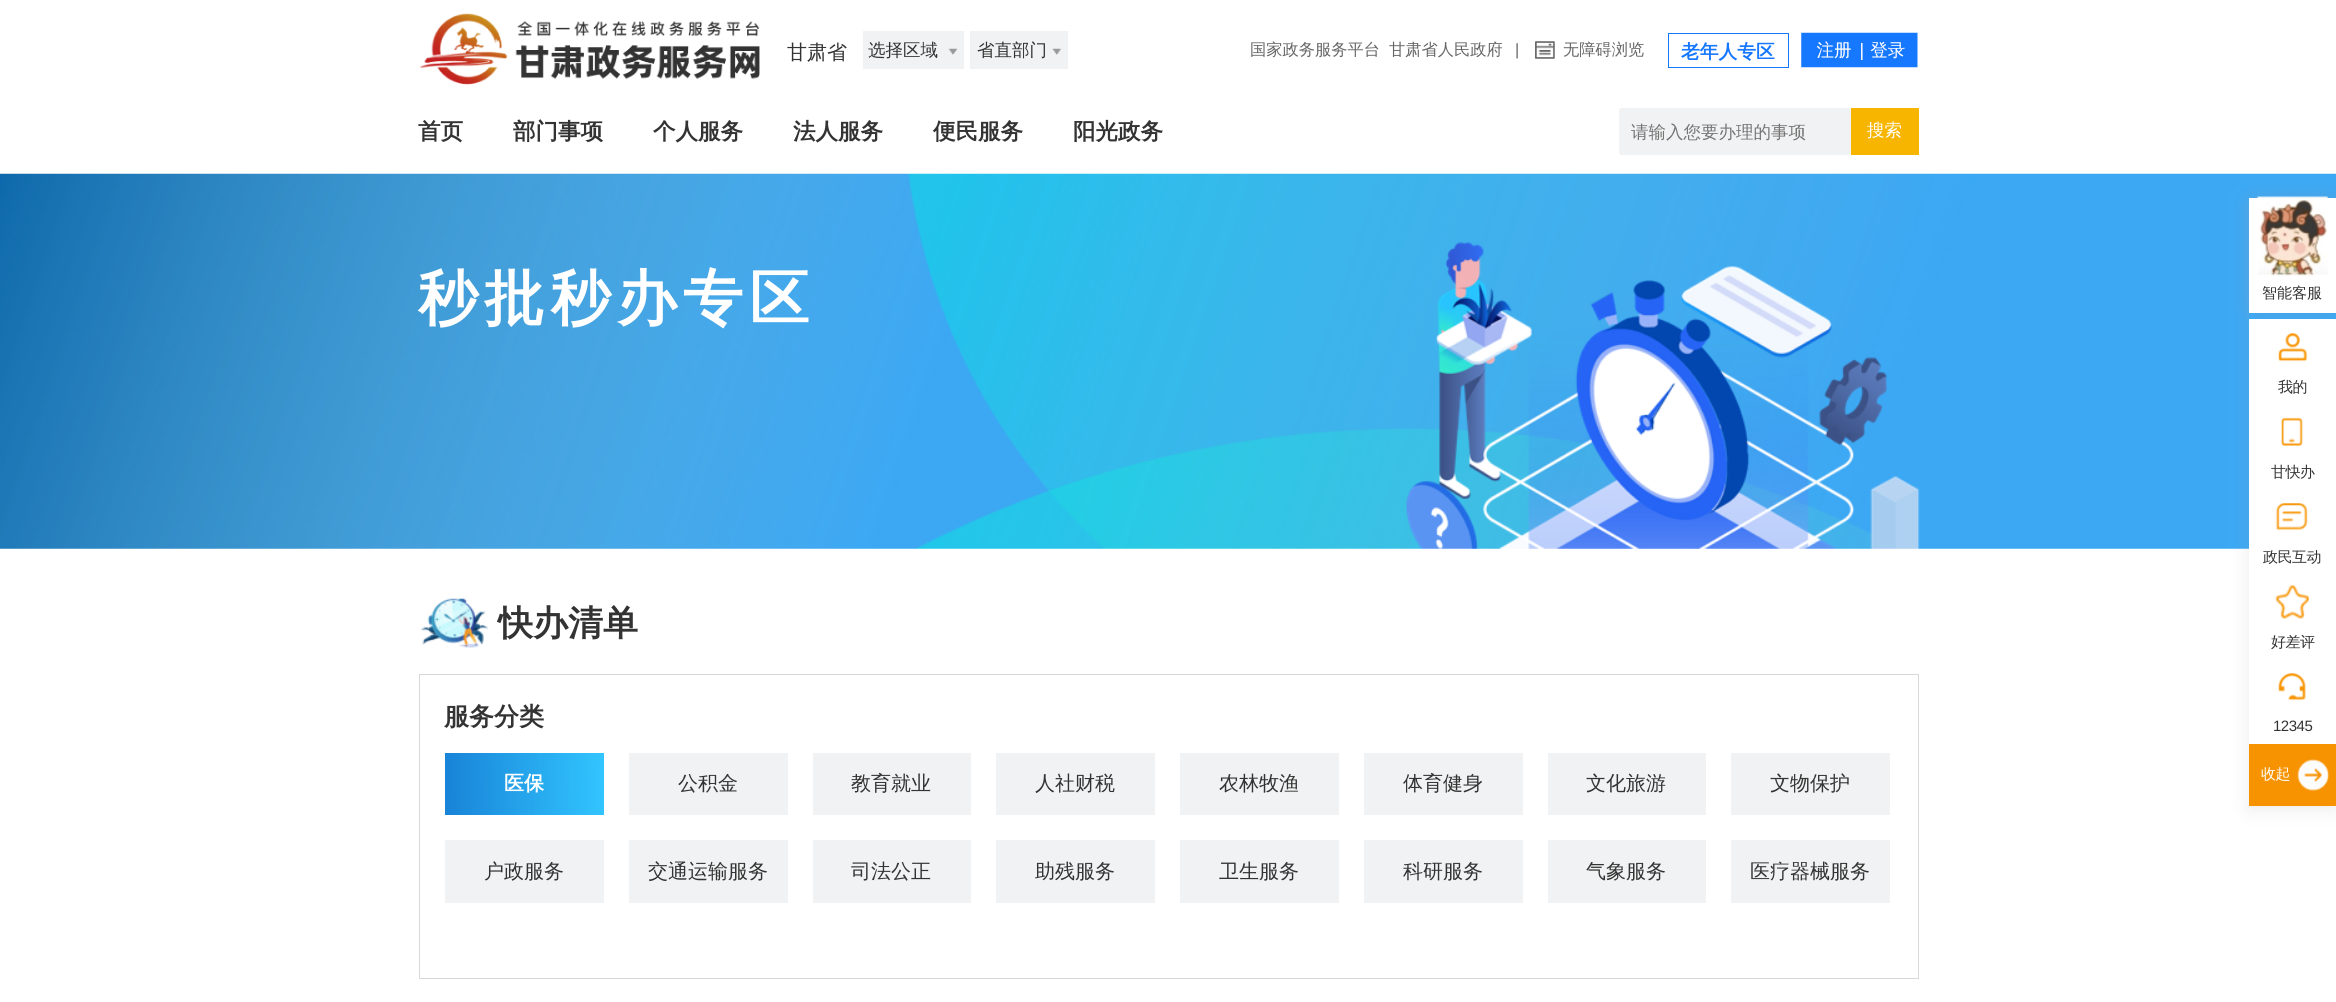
#include <cairo/cairo.h>
#include <math.h>
#include <stddef.h>


static void draw_spaced(cairo_t *cr, double x, double y, const char *s, double letter, double word) {
  cairo_move_to(cr, x, y);
  while (*s) {
    char ch[5] = {0};
    int n = 0;
    do ch[n++] = *s++; while ((*s & 0xC0) == 0x80);
    cairo_show_text(cr, ch);
    cairo_rel_move_to(cr, letter + word * (*ch == ' '), 0);
  }
}

static void rounded_rect(cairo_t *cr, double x, double y, double w, double h, double r) {
  cairo_new_sub_path(cr);
  cairo_arc(cr, x + w - r, y + h - r, r, 0, M_PI / 2);
  cairo_arc(cr, x + r, y + h - r, r, M_PI / 2, M_PI);
  cairo_arc(cr, x + r, y + r, r, M_PI, 1.5 * M_PI);
  cairo_arc(cr, x + w - r, y + r, r, 1.5 * M_PI, 2 * M_PI);
  cairo_close_path(cr);
}

static void draw_shadow(cairo_t *cr, double x, double y, double w, double h, double r, double blur, double alpha) {
  cairo_push_group_with_content(cr, CAIRO_CONTENT_ALPHA);
  cairo_set_operator(cr, CAIRO_OPERATOR_SOURCE);
  for (int i = 15; i >= -15 && fmin(w, h) + blur * i / 3 > 0; i -= 2) {
    double e = blur * i / 6;
    cairo_set_source_rgba(cr, 0, 0, 0, alpha * erfc((i - 1) / 8.5) / 2);
    rounded_rect(cr, x - e, y - e, w + 2 * e, h + 2 * e, fmax(0, fmin(r + e + blur * .6, fmin(w, h) / 2 + e)));
    cairo_fill(cr);
  }
  cairo_pattern_t *soft = cairo_pop_group(cr);
  cairo_mask(cr, soft);
  cairo_pattern_destroy(soft);
}

static void draw_image(cairo_t *cr, const char *path, double x, double y, double w, double h) {
  cairo_surface_t *image = cairo_image_surface_create_from_png(path);
  cairo_save(cr);
  cairo_set_source_surface(cr, image, x, y);
  cairo_rectangle(cr, x, y, w, h);
  cairo_fill(cr);
  cairo_restore(cr);
  cairo_surface_destroy(image);
}

static void draw(cairo_t *cr) {
  cairo_pattern_t *gradient;
  cairo_set_source_rgb(cr, 1, 1, 1);
  cairo_paint(cr);
  draw_image(cr, "images/1.png", 419, 13, 341, 72);
  cairo_set_source_rgb(cr, 241 / 255.0, 242 / 255.0, 243 / 255.0);
  cairo_rectangle(cr, 863, 31, 101, 38);
  cairo_fill(cr);
  draw_image(cr, "images/2.png", 948, 48, 10, 7);
  cairo_rectangle(cr, 970, 31, 98, 38);
  cairo_fill(cr);
  draw_image(cr, "images/3.png", 1052, 48, 10, 7);
  draw_image(cr, "images/4.png", 1535, 41, 20, 18);
  cairo_rectangle(cr, 1668.5, 33.5, 120, 34);
  cairo_set_source_rgb(cr, 22 / 255.0, 119 / 255.0, 1);
  cairo_set_line_width(cr, 1);
  cairo_stroke(cr);
  draw_image(cr, "images/5.png", 1801, 32, 117, 36);
  cairo_set_source_rgb(cr, 241 / 255.0, 242 / 255.0, 243 / 255.0);
  rounded_rect(cr, 1619, 108, 232, 47, 2.5);
  cairo_fill(cr);
  cairo_set_source_rgb(cr, 247 / 255.0, 181 / 255.0, 0);
  cairo_rectangle(cr, 1851, 108, 68, 47);
  cairo_fill(cr);
  draw_image(cr, "images/6.png", 0, 173, 2336, 376);
  cairo_save(cr);
  cairo_set_fill_rule(cr, CAIRO_FILL_RULE_EVEN_ODD);
  cairo_new_path(cr);
  cairo_move_to(cr, 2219, 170);
  cairo_line_to(cr, 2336, 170);
  cairo_line_to(cr, 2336, 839);
  cairo_line_to(cr, 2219, 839);
  cairo_close_path(cr);
  cairo_move_to(cr, 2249, 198);
  cairo_line_to(cr, 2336, 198);
  cairo_line_to(cr, 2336, 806);
  cairo_line_to(cr, 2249, 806);
  cairo_close_path(cr);
  cairo_clip(cr);
  cairo_set_source_rgb(cr, 153 / 255.0, 153 / 255.0, 153 / 255.0);
  draw_shadow(cr, 2249, 200, 87, 609, 0, 9.5, 0.2);
  cairo_restore(cr);
  cairo_set_source_rgb(cr, 153 / 255.0, 153 / 255.0, 153 / 255.0);
  draw_shadow(cr, 2249, 200, 87, 115, 10, 7.5, 0.2);
  cairo_set_source_rgb(cr, 1, 1, 1);
  cairo_rectangle(cr, 2249, 198, 87, 115);
  cairo_fill(cr);
  draw_image(cr, "images/7.png", 2256, 196, 72, 80);
  cairo_rectangle(cr, 2249, 319, 87, 230);
  cairo_fill(cr);
  draw_image(cr, "images/8.png", 2278, 333, 30, 29);
  draw_image(cr, "images/9.png", 2281, 417, 22, 29);
  draw_image(cr, "images/10.png", 2275, 503, 33, 28);
  draw_image(cr, "images/11.png", 2275, 585, 34, 34);
  draw_image(cr, "images/12.png", 2278, 673, 28, 28);
  cairo_set_source_rgb(cr, 247 / 255.0, 147 / 255.0, 0);
  cairo_rectangle(cr, 2249, 744, 87, 62);
  cairo_fill(cr);
  draw_image(cr, "images/13.png", 2297, 759, 32, 32);
  draw_image(cr, "images/14.png", 421, 598, 68, 50);
  cairo_rectangle(cr, 419.5, 674.5, 1499, 304);
  cairo_set_source_rgb(cr, 216 / 255.0, 216 / 255.0, 216 / 255.0);
  cairo_stroke(cr);
  gradient = cairo_pattern_create_linear(604, 782, 444, 785);
  cairo_pattern_add_color_stop_rgba(gradient, 0, 50 / 255.0, 197 / 255.0, 1, 1);
  cairo_pattern_add_color_stop_rgba(gradient, 1, 24 / 255.0, 131 / 255.0, 215 / 255.0, 1);
  cairo_set_source(cr, gradient);
  cairo_pattern_destroy(gradient);
  cairo_rectangle(cr, 445, 753, 159, 62);
  cairo_fill(cr);
  cairo_set_source_rgb(cr, 241 / 255.0, 242 / 255.0, 243 / 255.0);
  cairo_rectangle(cr, 629, 753, 159, 62);
  cairo_fill(cr);
  cairo_rectangle(cr, 813, 753, 158, 62);
  cairo_fill(cr);
  cairo_rectangle(cr, 996, 753, 159, 62);
  cairo_fill(cr);
  cairo_rectangle(cr, 1180, 753, 159, 62);
  cairo_fill(cr);
  cairo_rectangle(cr, 1364, 753, 159, 62);
  cairo_fill(cr);
  cairo_rectangle(cr, 1548, 753, 158, 62);
  cairo_fill(cr);
  cairo_rectangle(cr, 1731, 753, 159, 62);
  cairo_fill(cr);
  cairo_rectangle(cr, 445, 840, 159, 63);
  cairo_fill(cr);
  cairo_rectangle(cr, 629, 840, 159, 63);
  cairo_fill(cr);
  cairo_rectangle(cr, 813, 840, 158, 63);
  cairo_fill(cr);
  cairo_rectangle(cr, 996, 840, 159, 63);
  cairo_fill(cr);
  cairo_rectangle(cr, 1180, 840, 159, 63);
  cairo_fill(cr);
  cairo_rectangle(cr, 1364, 840, 159, 63);
  cairo_fill(cr);
  cairo_rectangle(cr, 1548, 840, 158, 63);
  cairo_fill(cr);
  cairo_rectangle(cr, 1731, 840, 159, 63);
  cairo_fill(cr);
  cairo_select_font_face(cr, "WenQuanYi Zen Hei Medium", CAIRO_FONT_SLANT_NORMAL, CAIRO_FONT_WEIGHT_NORMAL);
  cairo_set_font_size(cr, 20);
  cairo_set_source_rgb(cr, 51 / 255.0, 51 / 255.0, 51 / 255.0);
  cairo_move_to(cr, 787, 59);
  cairo_show_text(cr, "甘肃省");
  cairo_set_font_size(cr, 17.5);
  cairo_move_to(cr, 868, 56);
  cairo_show_text(cr, "选择区域");
  cairo_move_to(cr, 977, 56);
  cairo_show_text(cr, "省直部门");
  cairo_set_font_size(cr, 16.25);
  cairo_set_source_rgb(cr, 102 / 255.0, 102 / 255.0, 102 / 255.0);
  cairo_move_to(cr, 1250, 55);
  cairo_show_text(cr, "国家政务服务平台");
  cairo_move_to(cr, 1389, 55);
  cairo_show_text(cr, "甘肃省人民政府");
  cairo_select_font_face(cr, "Liberation Sans", CAIRO_FONT_SLANT_NORMAL, CAIRO_FONT_WEIGHT_NORMAL);
  cairo_move_to(cr, 1515, 55);
  cairo_show_text(cr, "|");
  cairo_select_font_face(cr, "WenQuanYi Zen Hei Medium", CAIRO_FONT_SLANT_NORMAL, CAIRO_FONT_WEIGHT_NORMAL);
  cairo_move_to(cr, 1563, 55);
  cairo_show_text(cr, "无障碍浏览");
  cairo_select_font_face(cr, "WenQuanYi Zen Hei", CAIRO_FONT_SLANT_NORMAL, CAIRO_FONT_WEIGHT_BOLD);
  cairo_set_font_size(cr, 18.75);
  cairo_set_source_rgb(cr, 22 / 255.0, 119 / 255.0, 1);
  cairo_move_to(cr, 1681, 58);
  cairo_show_text(cr, "老年人专区");
  cairo_set_font_size(cr, 22.5);
  cairo_set_source_rgb(cr, 51 / 255.0, 51 / 255.0, 51 / 255.0);
  cairo_move_to(cr, 418, 139);
  cairo_show_text(cr, "首页");
  cairo_move_to(cr, 513, 139);
  cairo_show_text(cr, "部门事项");
  cairo_move_to(cr, 653, 139);
  cairo_show_text(cr, "个人服务");
  cairo_move_to(cr, 793, 139);
  cairo_show_text(cr, "法人服务");
  cairo_move_to(cr, 933, 139);
  cairo_show_text(cr, "便民服务");
  cairo_move_to(cr, 1073, 139);
  cairo_show_text(cr, "阳光政务");
  cairo_select_font_face(cr, "WenQuanYi Zen Hei Medium", CAIRO_FONT_SLANT_NORMAL, CAIRO_FONT_WEIGHT_NORMAL);
  cairo_set_font_size(cr, 17.5);
  cairo_set_source_rgb(cr, 117 / 255.0, 117 / 255.0, 117 / 255.0);
  cairo_move_to(cr, 1631, 138);
  cairo_show_text(cr, "请输入您要办理的事项");
  cairo_set_source_rgb(cr, 1, 1, 1);
  cairo_move_to(cr, 1867, 136);
  cairo_show_text(cr, "搜索");
  cairo_select_font_face(cr, "WenQuanYi Zen Hei", CAIRO_FONT_SLANT_NORMAL, CAIRO_FONT_WEIGHT_BOLD);
  cairo_set_font_size(cr, 60);
  draw_spaced(cr, 418, 319, "秒批秒办专区", 6.25, 0);
  cairo_select_font_face(cr, "WenQuanYi Zen Hei Medium", CAIRO_FONT_SLANT_NORMAL, CAIRO_FONT_WEIGHT_NORMAL);
  cairo_set_font_size(cr, 15);
  cairo_set_source_rgb(cr, 51 / 255.0, 51 / 255.0, 51 / 255.0);
  cairo_move_to(cr, 2262, 298);
  cairo_show_text(cr, "智能客服");
  draw_spaced(cr, 2278, 392, "我的", -0.5, 0);
  draw_spaced(cr, 2271, 477, "甘快办", -0.5, 0);
  draw_spaced(cr, 2263, 562, "政民互动", -0.5, 0);
  draw_spaced(cr, 2271, 647, "好差评", -0.5, 0);
  cairo_select_font_face(cr, "Liberation Sans", CAIRO_FONT_SLANT_NORMAL, CAIRO_FONT_WEIGHT_NORMAL);
  draw_spaced(cr, 2273, 731, "12345", -0.5, 0);
  cairo_select_font_face(cr, "WenQuanYi Zen Hei Medium", CAIRO_FONT_SLANT_NORMAL, CAIRO_FONT_WEIGHT_NORMAL);
  cairo_set_source_rgb(cr, 1, 1, 1);
  draw_spaced(cr, 2261, 779, "收起", -0.5, 0);
  cairo_select_font_face(cr, "WenQuanYi Zen Hei", CAIRO_FONT_SLANT_NORMAL, CAIRO_FONT_WEIGHT_BOLD);
  cairo_set_font_size(cr, 35);
  cairo_set_source_rgb(cr, 51 / 255.0, 51 / 255.0, 51 / 255.0);
  cairo_move_to(cr, 498, 635);
  cairo_show_text(cr, "快办清单");
  cairo_set_font_size(cr, 25);
  cairo_move_to(cr, 444, 725);
  cairo_show_text(cr, "服务分类");
  cairo_set_font_size(cr, 20);
  cairo_set_source_rgb(cr, 1, 1, 1);
  cairo_move_to(cr, 504, 790);
  cairo_show_text(cr, "医保");
  cairo_select_font_face(cr, "WenQuanYi Zen Hei Medium", CAIRO_FONT_SLANT_NORMAL, CAIRO_FONT_WEIGHT_NORMAL);
  cairo_set_source_rgb(cr, 51 / 255.0, 51 / 255.0, 51 / 255.0);
  cairo_move_to(cr, 678, 790);
  cairo_show_text(cr, "公积金");
  cairo_move_to(cr, 851, 790);
  cairo_show_text(cr, "教育就业");
  cairo_move_to(cr, 1035, 790);
  cairo_show_text(cr, "人社财税");
  cairo_move_to(cr, 1219, 790);
  cairo_show_text(cr, "农林牧渔");
  cairo_move_to(cr, 1403, 790);
  cairo_show_text(cr, "体育健身");
  cairo_move_to(cr, 1586, 790);
  cairo_show_text(cr, "文化旅游");
  cairo_move_to(cr, 1770, 790);
  cairo_show_text(cr, "文物保护");
  cairo_move_to(cr, 484, 878);
  cairo_show_text(cr, "户政服务");
  cairo_move_to(cr, 648, 878);
  cairo_show_text(cr, "交通运输服务");
  cairo_move_to(cr, 851, 878);
  cairo_show_text(cr, "司法公正");
  cairo_move_to(cr, 1035, 878);
  cairo_show_text(cr, "助残服务");
  cairo_move_to(cr, 1219, 878);
  cairo_show_text(cr, "卫生服务");
  cairo_move_to(cr, 1403, 878);
  cairo_show_text(cr, "科研服务");
  cairo_move_to(cr, 1586, 878);
  cairo_show_text(cr, "气象服务");
  cairo_move_to(cr, 1750, 878);
  cairo_show_text(cr, "医疗器械服务");
}

int main(void) {
  cairo_surface_t *surface = cairo_image_surface_create(CAIRO_FORMAT_RGB24, 2336, 1002);
  cairo_t *cr = cairo_create(surface);
  cairo_font_options_t *options = cairo_font_options_create();
  cairo_font_options_set_hint_metrics(options, CAIRO_HINT_METRICS_OFF);
  cairo_font_options_set_hint_style(options, CAIRO_HINT_STYLE_NONE);
  cairo_set_font_options(cr, options);
  cairo_set_miter_limit(cr, 4);
  draw(cr);
  cairo_surface_write_to_png(surface, "out.png");
  cairo_font_options_destroy(options);
  cairo_destroy(cr);
  cairo_surface_destroy(surface);
  return 0;
}
